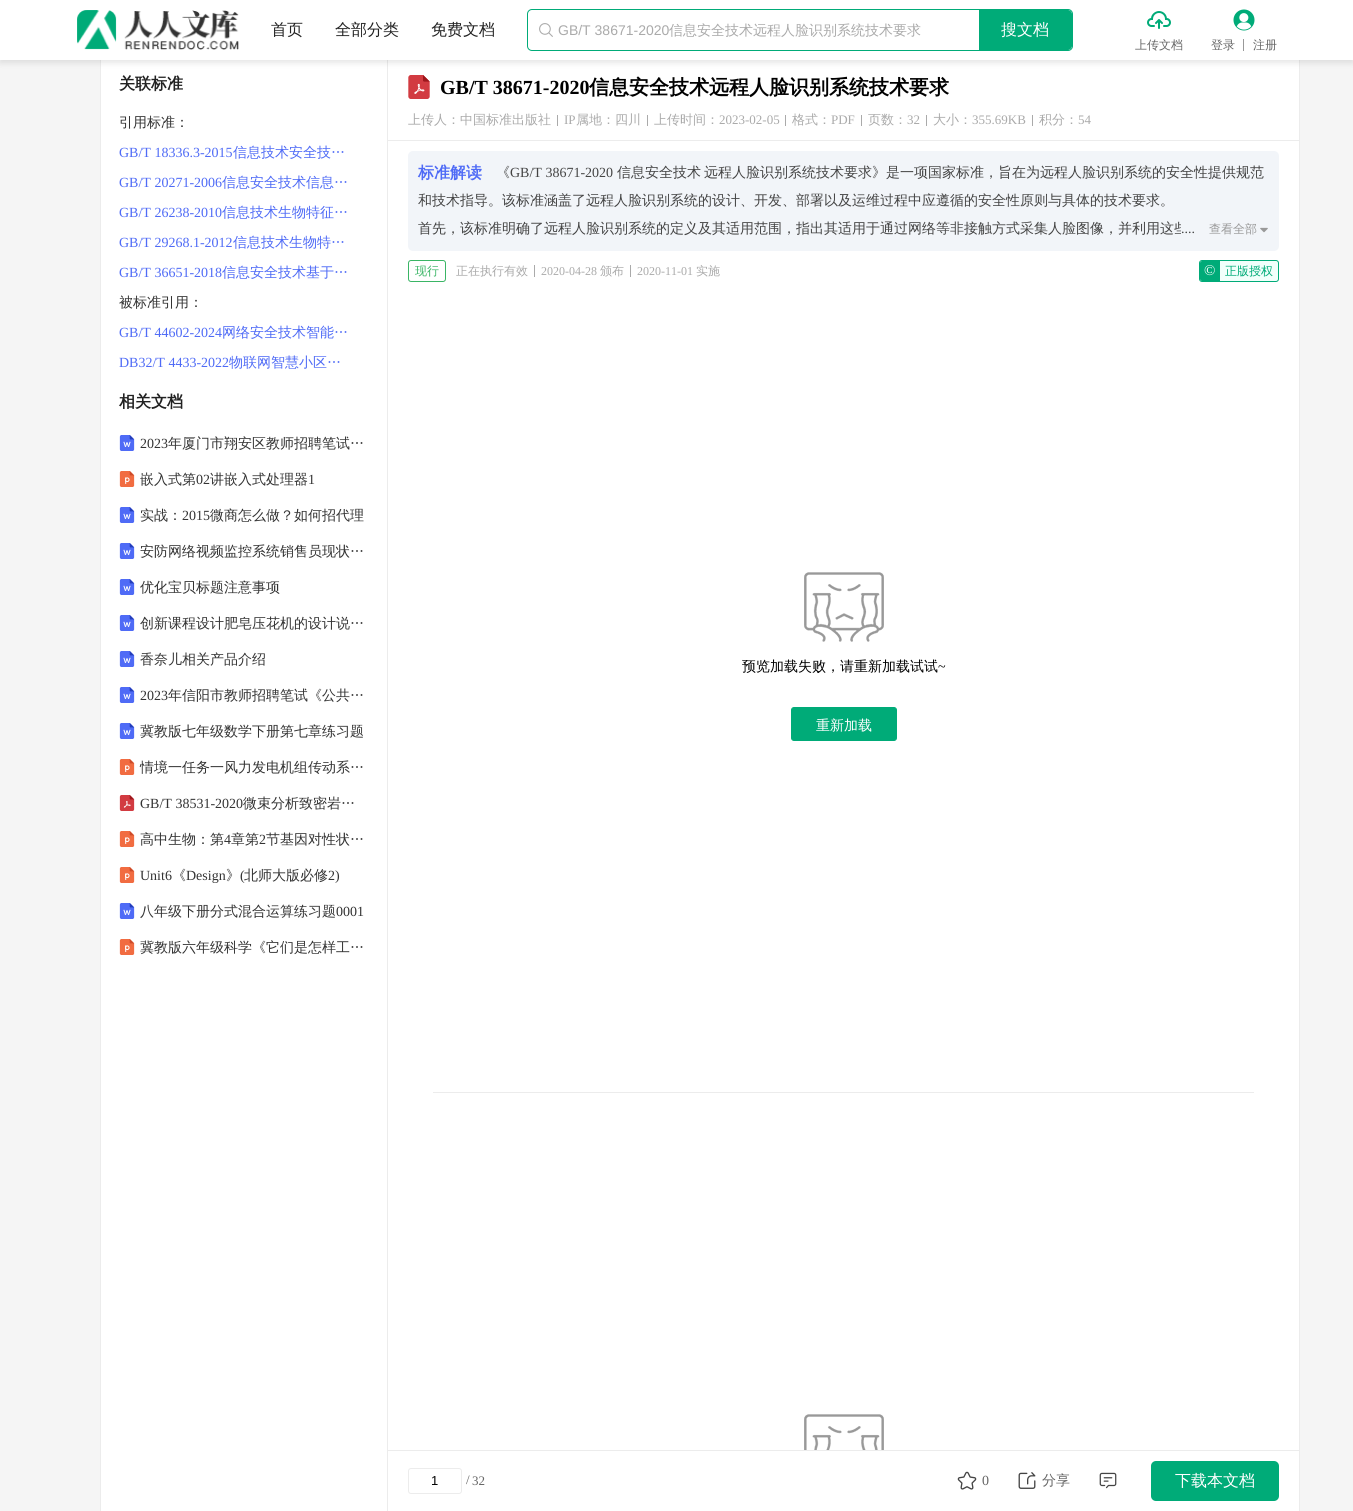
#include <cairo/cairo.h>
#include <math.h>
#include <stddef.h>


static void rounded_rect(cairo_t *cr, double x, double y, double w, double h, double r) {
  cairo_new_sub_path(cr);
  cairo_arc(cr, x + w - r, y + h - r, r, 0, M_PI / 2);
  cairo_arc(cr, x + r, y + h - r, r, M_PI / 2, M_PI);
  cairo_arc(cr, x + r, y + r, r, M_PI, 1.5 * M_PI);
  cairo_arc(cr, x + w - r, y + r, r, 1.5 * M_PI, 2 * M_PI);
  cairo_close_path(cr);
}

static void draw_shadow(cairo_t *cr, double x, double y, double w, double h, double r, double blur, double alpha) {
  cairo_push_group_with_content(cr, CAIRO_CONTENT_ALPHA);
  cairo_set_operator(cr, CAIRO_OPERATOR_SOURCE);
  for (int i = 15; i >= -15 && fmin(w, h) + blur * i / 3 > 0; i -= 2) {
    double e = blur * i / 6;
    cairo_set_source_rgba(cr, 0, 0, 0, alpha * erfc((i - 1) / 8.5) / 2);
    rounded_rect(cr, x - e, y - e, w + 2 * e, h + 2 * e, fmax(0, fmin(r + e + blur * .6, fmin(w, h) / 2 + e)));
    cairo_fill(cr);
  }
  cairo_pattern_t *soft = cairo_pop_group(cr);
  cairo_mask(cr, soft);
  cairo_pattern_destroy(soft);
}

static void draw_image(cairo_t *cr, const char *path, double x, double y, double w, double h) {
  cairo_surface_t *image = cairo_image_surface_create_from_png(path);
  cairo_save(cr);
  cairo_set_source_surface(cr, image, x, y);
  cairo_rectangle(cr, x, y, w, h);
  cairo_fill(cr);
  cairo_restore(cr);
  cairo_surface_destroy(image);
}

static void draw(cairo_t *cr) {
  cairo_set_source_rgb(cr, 245 / 255.0, 245 / 255.0, 245 / 255.0);
  cairo_paint(cr);
  cairo_set_source_rgb(cr, 1, 1, 1);
  cairo_rectangle(cr, 101, 60, 286, 1451);
  cairo_fill(cr);
  cairo_set_source_rgb(cr, 236 / 255.0, 236 / 255.0, 236 / 255.0);
  cairo_rectangle(cr, 387, 60, 1, 1451);
  cairo_fill(cr);
  cairo_rectangle(cr, 100, 60, 1, 1451);
  cairo_fill(cr);
  cairo_set_source_rgb(cr, 1, 1, 1);
  cairo_rectangle(cr, 388, 60, 911, 1451);
  cairo_fill(cr);
  cairo_set_source_rgb(cr, 236 / 255.0, 236 / 255.0, 236 / 255.0);
  cairo_rectangle(cr, 1299, 60, 1, 1451);
  cairo_fill(cr);
  cairo_set_source_rgb(cr, 0, 0, 0);
  draw_shadow(cr, 0, 3, 1353, 60, 0, 3, 0.1);
  cairo_set_source_rgb(cr, 1, 1, 1);
  cairo_rectangle(cr, 0, 0, 1353, 60);
  cairo_fill(cr);
  draw_image(cr, "images/1.png", 77, 10, 162, 40);
  rounded_rect(cr, 527.5, 9.5, 545, 41, 4.5);
  cairo_set_source_rgb(cr, 0, 171 / 255.0, 120 / 255.0);
  cairo_set_line_width(cr, 1);
  cairo_stroke(cr);
  draw_image(cr, "images/2.png", 539, 23, 14, 14);
  cairo_new_path(cr);
  cairo_move_to(cr, 979, 10);
  cairo_line_to(cr, 1068, 10);
  cairo_curve_to(cr, 1070, 10, 1072, 12, 1072, 14);
  cairo_line_to(cr, 1072, 46);
  cairo_curve_to(cr, 1072, 48, 1070, 50, 1068, 50);
  cairo_line_to(cr, 979, 50);
  cairo_close_path(cr);
  cairo_fill(cr);
  draw_image(cr, "images/3.png", 1147, 11, 24, 18);
  draw_image(cr, "images/4.png", 1233, 9, 22, 22);
  cairo_set_source_rgb(cr, 153 / 255.0, 153 / 255.0, 153 / 255.0);
  cairo_rectangle(cr, 1243, 39, 1, 12);
  cairo_fill(cr);
  draw_image(cr, "images/5.png", 119, 435, 16, 16);
  draw_image(cr, "images/6.png", 119, 471, 16, 16);
  draw_image(cr, "images/5.png", 119, 507, 16, 16);
  draw_image(cr, "images/5.png", 119, 543, 16, 16);
  draw_image(cr, "images/5.png", 119, 579, 16, 16);
  draw_image(cr, "images/5.png", 119, 615, 16, 16);
  draw_image(cr, "images/5.png", 119, 651, 16, 16);
  draw_image(cr, "images/5.png", 119, 687, 16, 16);
  draw_image(cr, "images/5.png", 119, 723, 16, 16);
  draw_image(cr, "images/6.png", 119, 759, 16, 16);
  draw_image(cr, "images/7.png", 119, 795, 16, 16);
  draw_image(cr, "images/6.png", 119, 831, 16, 16);
  draw_image(cr, "images/6.png", 119, 867, 16, 16);
  draw_image(cr, "images/5.png", 119, 903, 16, 16);
  draw_image(cr, "images/6.png", 119, 939, 16, 16);
  cairo_set_source_rgb(cr, 236 / 255.0, 236 / 255.0, 236 / 255.0);
  cairo_rectangle(cr, 388, 140, 911, 1);
  cairo_fill(cr);
  draw_image(cr, "images/8.png", 408, 75, 22, 24);
  cairo_set_source_rgb(cr, 170 / 255.0, 170 / 255.0, 170 / 255.0);
  cairo_rectangle(cr, 557, 115, 1, 11);
  cairo_fill(cr);
  cairo_rectangle(cr, 647, 115, 1, 11);
  cairo_fill(cr);
  cairo_rectangle(cr, 785, 115, 1, 11);
  cairo_fill(cr);
  cairo_rectangle(cr, 861, 115, 1, 11);
  cairo_fill(cr);
  cairo_rectangle(cr, 926, 115, 1, 11);
  cairo_fill(cr);
  cairo_rectangle(cr, 1032, 115, 1, 11);
  cairo_fill(cr);
  cairo_set_source_rgb(cr, 242 / 255.0, 245 / 255.0, 249 / 255.0);
  rounded_rect(cr, 408, 151, 871, 100, 5);
  cairo_fill(cr);
  draw_image(cr, "images/9.png", 1260, 227, 8, 6);
  rounded_rect(cr, 408.5, 260.5, 37, 21, 2.5);
  cairo_set_source_rgb(cr, 58 / 255.0, 181 / 255.0, 101 / 255.0);
  cairo_stroke(cr);
  cairo_set_source_rgb(cr, 170 / 255.0, 170 / 255.0, 170 / 255.0);
  cairo_rectangle(cr, 534, 265, 1, 12);
  cairo_fill(cr);
  cairo_rectangle(cr, 630, 265, 1, 12);
  cairo_fill(cr);
  cairo_set_source_rgb(cr, 241 / 255.0, 1, 251 / 255.0);
  rounded_rect(cr, 1199.5, 260.5, 79, 21, 2.5);
  cairo_fill_preserve(cr);
  cairo_set_source_rgb(cr, 0, 171 / 255.0, 120 / 255.0);
  cairo_stroke(cr);
  cairo_new_path(cr);
  cairo_move_to(cr, 1202, 261);
  cairo_line_to(cr, 1220, 261);
  cairo_line_to(cr, 1220, 281);
  cairo_line_to(cr, 1202, 281);
  cairo_curve_to(cr, 1201, 281, 1200, 280, 1200, 279);
  cairo_line_to(cr, 1200, 263);
  cairo_curve_to(cr, 1200, 262, 1201, 261, 1202, 261);
  cairo_close_path(cr);
  cairo_fill(cr);
  cairo_set_source_rgb(cr, 236 / 255.0, 236 / 255.0, 236 / 255.0);
  cairo_rectangle(cr, 433, 1092, 821, 1);
  cairo_fill(cr);
  draw_image(cr, "images/10.png", 804, 572, 80, 70);
  cairo_set_source_rgb(cr, 0, 171 / 255.0, 120 / 255.0);
  rounded_rect(cr, 791.5, 707.5, 105, 33, 2.5);
  cairo_fill_preserve(cr);
  cairo_stroke(cr);
  draw_image(cr, "images/11.png", 804, 1414, 80, 36);
  cairo_set_source_rgb(cr, 236 / 255.0, 236 / 255.0, 236 / 255.0);
  cairo_rectangle(cr, 388, 1450, 911, 1);
  cairo_fill(cr);
  rounded_rect(cr, 408.5, 1468.5, 53, 25, 2.5);
  cairo_stroke(cr);
  draw_image(cr, "images/12.png", 957, 1471, 20, 19);
  draw_image(cr, "images/13.png", 1018, 1472, 18, 17);
  draw_image(cr, "images/14.png", 1099, 1472, 18, 17);
  cairo_set_source_rgb(cr, 0, 171 / 255.0, 120 / 255.0);
  rounded_rect(cr, 1151, 1461, 128, 40, 5);
  cairo_fill(cr);
  cairo_select_font_face(cr, "WenQuanYi Zen Hei Medium", CAIRO_FONT_SLANT_NORMAL, CAIRO_FONT_WEIGHT_NORMAL);
  cairo_set_font_size(cr, 16);
  cairo_set_source_rgb(cr, 34 / 255.0, 34 / 255.0, 34 / 255.0);
  cairo_move_to(cr, 271, 35);
  cairo_show_text(cr, "首页");
  cairo_move_to(cr, 335, 35);
  cairo_show_text(cr, "全部分类");
  cairo_move_to(cr, 431, 35);
  cairo_show_text(cr, "免费文档");
  cairo_select_font_face(cr, "Liberation Sans", CAIRO_FONT_SLANT_NORMAL, CAIRO_FONT_WEIGHT_NORMAL);
  cairo_set_font_size(cr, 14);
  cairo_set_source_rgb(cr, 170 / 255.0, 170 / 255.0, 170 / 255.0);
  cairo_move_to(cr, 558, 35);
  cairo_show_text(cr, "GB/T 38671-2020");
  cairo_select_font_face(cr, "WenQuanYi Zen Hei Medium", CAIRO_FONT_SLANT_NORMAL, CAIRO_FONT_WEIGHT_NORMAL);
  cairo_move_to(cr, 669, 35);
  cairo_show_text(cr, "信息安全技术远程人脸识别系统技术要求");
  cairo_set_font_size(cr, 16);
  cairo_set_source_rgb(cr, 1, 1, 1);
  cairo_move_to(cr, 1001, 35);
  cairo_show_text(cr, "搜文档");
  cairo_set_font_size(cr, 12);
  cairo_set_source_rgb(cr, 102 / 255.0, 102 / 255.0, 102 / 255.0);
  cairo_move_to(cr, 1135, 49);
  cairo_show_text(cr, "上传文档");
  cairo_move_to(cr, 1211, 49);
  cairo_show_text(cr, "登录");
  cairo_move_to(cr, 1253, 49);
  cairo_show_text(cr, "注册");
  cairo_select_font_face(cr, "WenQuanYi Zen Hei", CAIRO_FONT_SLANT_NORMAL, CAIRO_FONT_WEIGHT_BOLD);
  cairo_set_font_size(cr, 16);
  cairo_set_source_rgb(cr, 34 / 255.0, 34 / 255.0, 34 / 255.0);
  cairo_move_to(cr, 119, 89);
  cairo_show_text(cr, "关联标准");
  cairo_select_font_face(cr, "WenQuanYi Zen Hei Medium", CAIRO_FONT_SLANT_NORMAL, CAIRO_FONT_WEIGHT_NORMAL);
  cairo_set_font_size(cr, 14);
  cairo_set_source_rgb(cr, 51 / 255.0, 51 / 255.0, 51 / 255.0);
  cairo_move_to(cr, 119, 127);
  cairo_show_text(cr, "引用标准：");
  cairo_select_font_face(cr, "Liberation Serif", CAIRO_FONT_SLANT_NORMAL, CAIRO_FONT_WEIGHT_NORMAL);
  cairo_set_source_rgb(cr, 79 / 255.0, 107 / 255.0, 246 / 255.0);
  cairo_move_to(cr, 119, 157);
  cairo_show_text(cr, "GB/T 18336.3-2015");
  cairo_select_font_face(cr, "WenQuanYi Zen Hei Medium", CAIRO_FONT_SLANT_NORMAL, CAIRO_FONT_WEIGHT_NORMAL);
  cairo_move_to(cr, 233, 157);
  cairo_show_text(cr, "信息技术安全技…");
  cairo_select_font_face(cr, "Liberation Serif", CAIRO_FONT_SLANT_NORMAL, CAIRO_FONT_WEIGHT_NORMAL);
  cairo_move_to(cr, 119, 187);
  cairo_show_text(cr, "GB/T 20271-2006");
  cairo_select_font_face(cr, "WenQuanYi Zen Hei Medium", CAIRO_FONT_SLANT_NORMAL, CAIRO_FONT_WEIGHT_NORMAL);
  cairo_move_to(cr, 222, 187);
  cairo_show_text(cr, "信息安全技术信息…");
  cairo_select_font_face(cr, "Liberation Serif", CAIRO_FONT_SLANT_NORMAL, CAIRO_FONT_WEIGHT_NORMAL);
  cairo_move_to(cr, 119, 217);
  cairo_show_text(cr, "GB/T 26238-2010");
  cairo_select_font_face(cr, "WenQuanYi Zen Hei Medium", CAIRO_FONT_SLANT_NORMAL, CAIRO_FONT_WEIGHT_NORMAL);
  cairo_move_to(cr, 222, 217);
  cairo_show_text(cr, "信息技术生物特征…");
  cairo_select_font_face(cr, "Liberation Serif", CAIRO_FONT_SLANT_NORMAL, CAIRO_FONT_WEIGHT_NORMAL);
  cairo_move_to(cr, 119, 247);
  cairo_show_text(cr, "GB/T 29268.1-2012");
  cairo_select_font_face(cr, "WenQuanYi Zen Hei Medium", CAIRO_FONT_SLANT_NORMAL, CAIRO_FONT_WEIGHT_NORMAL);
  cairo_move_to(cr, 233, 247);
  cairo_show_text(cr, "信息技术生物特…");
  cairo_select_font_face(cr, "Liberation Serif", CAIRO_FONT_SLANT_NORMAL, CAIRO_FONT_WEIGHT_NORMAL);
  cairo_move_to(cr, 119, 277);
  cairo_show_text(cr, "GB/T 36651-2018");
  cairo_select_font_face(cr, "WenQuanYi Zen Hei Medium", CAIRO_FONT_SLANT_NORMAL, CAIRO_FONT_WEIGHT_NORMAL);
  cairo_move_to(cr, 222, 277);
  cairo_show_text(cr, "信息安全技术基于…");
  cairo_set_source_rgb(cr, 51 / 255.0, 51 / 255.0, 51 / 255.0);
  cairo_move_to(cr, 119, 307);
  cairo_show_text(cr, "被标准引用：");
  cairo_select_font_face(cr, "Liberation Serif", CAIRO_FONT_SLANT_NORMAL, CAIRO_FONT_WEIGHT_NORMAL);
  cairo_set_source_rgb(cr, 79 / 255.0, 107 / 255.0, 246 / 255.0);
  cairo_move_to(cr, 119, 337);
  cairo_show_text(cr, "GB/T 44602-2024");
  cairo_select_font_face(cr, "WenQuanYi Zen Hei Medium", CAIRO_FONT_SLANT_NORMAL, CAIRO_FONT_WEIGHT_NORMAL);
  cairo_move_to(cr, 222, 337);
  cairo_show_text(cr, "网络安全技术智能…");
  cairo_select_font_face(cr, "Liberation Serif", CAIRO_FONT_SLANT_NORMAL, CAIRO_FONT_WEIGHT_NORMAL);
  cairo_move_to(cr, 119, 367);
  cairo_show_text(cr, "DB32/T 4433-2022");
  cairo_select_font_face(cr, "WenQuanYi Zen Hei Medium", CAIRO_FONT_SLANT_NORMAL, CAIRO_FONT_WEIGHT_NORMAL);
  cairo_move_to(cr, 229, 367);
  cairo_show_text(cr, "物联网智慧小区…");
  cairo_select_font_face(cr, "WenQuanYi Zen Hei", CAIRO_FONT_SLANT_NORMAL, CAIRO_FONT_WEIGHT_BOLD);
  cairo_set_font_size(cr, 16);
  cairo_set_source_rgb(cr, 34 / 255.0, 34 / 255.0, 34 / 255.0);
  cairo_move_to(cr, 119, 407);
  cairo_show_text(cr, "相关文档");
  cairo_select_font_face(cr, "Liberation Serif", CAIRO_FONT_SLANT_NORMAL, CAIRO_FONT_WEIGHT_NORMAL);
  cairo_set_font_size(cr, 14);
  cairo_set_source_rgb(cr, 51 / 255.0, 51 / 255.0, 51 / 255.0);
  cairo_move_to(cr, 140, 448);
  cairo_show_text(cr, "2023");
  cairo_select_font_face(cr, "WenQuanYi Zen Hei Medium", CAIRO_FONT_SLANT_NORMAL, CAIRO_FONT_WEIGHT_NORMAL);
  cairo_move_to(cr, 168, 448);
  cairo_show_text(cr, "年厦门市翔安区教师招聘笔试…");
  cairo_move_to(cr, 140, 484);
  cairo_show_text(cr, "嵌入式第");
  cairo_select_font_face(cr, "Liberation Serif", CAIRO_FONT_SLANT_NORMAL, CAIRO_FONT_WEIGHT_NORMAL);
  cairo_move_to(cr, 196, 484);
  cairo_show_text(cr, "02");
  cairo_select_font_face(cr, "WenQuanYi Zen Hei Medium", CAIRO_FONT_SLANT_NORMAL, CAIRO_FONT_WEIGHT_NORMAL);
  cairo_move_to(cr, 210, 484);
  cairo_show_text(cr, "讲嵌入式处理器");
  cairo_select_font_face(cr, "Liberation Serif", CAIRO_FONT_SLANT_NORMAL, CAIRO_FONT_WEIGHT_NORMAL);
  cairo_move_to(cr, 308, 484);
  cairo_show_text(cr, "1");
  cairo_select_font_face(cr, "WenQuanYi Zen Hei Medium", CAIRO_FONT_SLANT_NORMAL, CAIRO_FONT_WEIGHT_NORMAL);
  cairo_move_to(cr, 140, 520);
  cairo_show_text(cr, "实战：");
  cairo_select_font_face(cr, "Liberation Serif", CAIRO_FONT_SLANT_NORMAL, CAIRO_FONT_WEIGHT_NORMAL);
  cairo_move_to(cr, 182, 520);
  cairo_show_text(cr, "2015");
  cairo_select_font_face(cr, "WenQuanYi Zen Hei Medium", CAIRO_FONT_SLANT_NORMAL, CAIRO_FONT_WEIGHT_NORMAL);
  cairo_move_to(cr, 210, 520);
  cairo_show_text(cr, "微商怎么做？如何招代理");
  cairo_move_to(cr, 140, 556);
  cairo_show_text(cr, "安防网络视频监控系统销售员现状…");
  cairo_move_to(cr, 140, 592);
  cairo_show_text(cr, "优化宝贝标题注意事项");
  cairo_move_to(cr, 140, 628);
  cairo_show_text(cr, "创新课程设计肥皂压花机的设计说…");
  cairo_move_to(cr, 140, 664);
  cairo_show_text(cr, "香奈儿相关产品介绍");
  cairo_select_font_face(cr, "Liberation Serif", CAIRO_FONT_SLANT_NORMAL, CAIRO_FONT_WEIGHT_NORMAL);
  cairo_move_to(cr, 140, 700);
  cairo_show_text(cr, "2023");
  cairo_select_font_face(cr, "WenQuanYi Zen Hei Medium", CAIRO_FONT_SLANT_NORMAL, CAIRO_FONT_WEIGHT_NORMAL);
  cairo_move_to(cr, 168, 700);
  cairo_show_text(cr, "年信阳市教师招聘笔试《公共…");
  cairo_move_to(cr, 140, 736);
  cairo_show_text(cr, "冀教版七年级数学下册第七章练习题");
  cairo_move_to(cr, 140, 772);
  cairo_show_text(cr, "情境一任务一风力发电机组传动系…");
  cairo_select_font_face(cr, "Liberation Serif", CAIRO_FONT_SLANT_NORMAL, CAIRO_FONT_WEIGHT_NORMAL);
  cairo_move_to(cr, 140, 808);
  cairo_show_text(cr, "GB/T 38531-2020");
  cairo_select_font_face(cr, "WenQuanYi Zen Hei Medium", CAIRO_FONT_SLANT_NORMAL, CAIRO_FONT_WEIGHT_NORMAL);
  cairo_move_to(cr, 243, 808);
  cairo_show_text(cr, "微束分析致密岩…");
  cairo_move_to(cr, 140, 844);
  cairo_show_text(cr, "高中生物：第");
  cairo_select_font_face(cr, "Liberation Serif", CAIRO_FONT_SLANT_NORMAL, CAIRO_FONT_WEIGHT_NORMAL);
  cairo_move_to(cr, 224, 844);
  cairo_show_text(cr, "4");
  cairo_select_font_face(cr, "WenQuanYi Zen Hei Medium", CAIRO_FONT_SLANT_NORMAL, CAIRO_FONT_WEIGHT_NORMAL);
  cairo_move_to(cr, 231, 844);
  cairo_show_text(cr, "章第");
  cairo_select_font_face(cr, "Liberation Serif", CAIRO_FONT_SLANT_NORMAL, CAIRO_FONT_WEIGHT_NORMAL);
  cairo_move_to(cr, 259, 844);
  cairo_show_text(cr, "2");
  cairo_select_font_face(cr, "WenQuanYi Zen Hei Medium", CAIRO_FONT_SLANT_NORMAL, CAIRO_FONT_WEIGHT_NORMAL);
  cairo_move_to(cr, 266, 844);
  cairo_show_text(cr, "节基因对性状…");
  cairo_select_font_face(cr, "Liberation Serif", CAIRO_FONT_SLANT_NORMAL, CAIRO_FONT_WEIGHT_NORMAL);
  cairo_move_to(cr, 140, 880);
  cairo_show_text(cr, "Unit6");
  cairo_select_font_face(cr, "WenQuanYi Zen Hei Medium", CAIRO_FONT_SLANT_NORMAL, CAIRO_FONT_WEIGHT_NORMAL);
  cairo_move_to(cr, 172, 880);
  cairo_show_text(cr, "《");
  cairo_select_font_face(cr, "Liberation Serif", CAIRO_FONT_SLANT_NORMAL, CAIRO_FONT_WEIGHT_NORMAL);
  cairo_move_to(cr, 186, 880);
  cairo_show_text(cr, "Design");
  cairo_select_font_face(cr, "WenQuanYi Zen Hei Medium", CAIRO_FONT_SLANT_NORMAL, CAIRO_FONT_WEIGHT_NORMAL);
  cairo_move_to(cr, 226, 880);
  cairo_show_text(cr, "》");
  cairo_select_font_face(cr, "Liberation Serif", CAIRO_FONT_SLANT_NORMAL, CAIRO_FONT_WEIGHT_NORMAL);
  cairo_move_to(cr, 240, 880);
  cairo_show_text(cr, "(");
  cairo_select_font_face(cr, "WenQuanYi Zen Hei Medium", CAIRO_FONT_SLANT_NORMAL, CAIRO_FONT_WEIGHT_NORMAL);
  cairo_move_to(cr, 244, 880);
  cairo_show_text(cr, "北师大版必修");
  cairo_select_font_face(cr, "Liberation Serif", CAIRO_FONT_SLANT_NORMAL, CAIRO_FONT_WEIGHT_NORMAL);
  cairo_move_to(cr, 328, 880);
  cairo_show_text(cr, "2)");
  cairo_select_font_face(cr, "WenQuanYi Zen Hei Medium", CAIRO_FONT_SLANT_NORMAL, CAIRO_FONT_WEIGHT_NORMAL);
  cairo_move_to(cr, 140, 916);
  cairo_show_text(cr, "八年级下册分式混合运算练习题");
  cairo_select_font_face(cr, "Liberation Serif", CAIRO_FONT_SLANT_NORMAL, CAIRO_FONT_WEIGHT_NORMAL);
  cairo_move_to(cr, 336, 916);
  cairo_show_text(cr, "0001");
  cairo_select_font_face(cr, "WenQuanYi Zen Hei Medium", CAIRO_FONT_SLANT_NORMAL, CAIRO_FONT_WEIGHT_NORMAL);
  cairo_move_to(cr, 140, 952);
  cairo_show_text(cr, "冀教版六年级科学《它们是怎样工…");
  cairo_select_font_face(cr, "Liberation Serif", CAIRO_FONT_SLANT_NORMAL, CAIRO_FONT_WEIGHT_BOLD);
  cairo_set_font_size(cr, 20);
  cairo_set_source_rgb(cr, 0, 0, 0);
  cairo_move_to(cr, 440, 94);
  cairo_show_text(cr, "GB/T 38671-2020");
  cairo_select_font_face(cr, "WenQuanYi Zen Hei", CAIRO_FONT_SLANT_NORMAL, CAIRO_FONT_WEIGHT_BOLD);
  cairo_move_to(cr, 589, 94);
  cairo_show_text(cr, "信息安全技术远程人脸识别系统技术要求");
  cairo_select_font_face(cr, "WenQuanYi Zen Hei Medium", CAIRO_FONT_SLANT_NORMAL, CAIRO_FONT_WEIGHT_NORMAL);
  cairo_set_font_size(cr, 13);
  cairo_set_source_rgb(cr, 170 / 255.0, 170 / 255.0, 170 / 255.0);
  cairo_move_to(cr, 408, 124);
  cairo_show_text(cr, "上传人：中国标准出版社");
  cairo_select_font_face(cr, "Liberation Serif", CAIRO_FONT_SLANT_NORMAL, CAIRO_FONT_WEIGHT_NORMAL);
  cairo_move_to(cr, 564, 124);
  cairo_show_text(cr, "IP");
  cairo_select_font_face(cr, "WenQuanYi Zen Hei Medium", CAIRO_FONT_SLANT_NORMAL, CAIRO_FONT_WEIGHT_NORMAL);
  cairo_move_to(cr, 576, 124);
  cairo_show_text(cr, "属地：四川");
  cairo_move_to(cr, 654, 124);
  cairo_show_text(cr, "上传时间：");
  cairo_select_font_face(cr, "Liberation Serif", CAIRO_FONT_SLANT_NORMAL, CAIRO_FONT_WEIGHT_NORMAL);
  cairo_move_to(cr, 719, 124);
  cairo_show_text(cr, "2023-02-05");
  cairo_select_font_face(cr, "WenQuanYi Zen Hei Medium", CAIRO_FONT_SLANT_NORMAL, CAIRO_FONT_WEIGHT_NORMAL);
  cairo_move_to(cr, 792, 124);
  cairo_show_text(cr, "格式：");
  cairo_select_font_face(cr, "Liberation Serif", CAIRO_FONT_SLANT_NORMAL, CAIRO_FONT_WEIGHT_NORMAL);
  cairo_move_to(cr, 831, 124);
  cairo_show_text(cr, "PDF");
  cairo_select_font_face(cr, "WenQuanYi Zen Hei Medium", CAIRO_FONT_SLANT_NORMAL, CAIRO_FONT_WEIGHT_NORMAL);
  cairo_move_to(cr, 868, 124);
  cairo_show_text(cr, "页数：");
  cairo_select_font_face(cr, "Liberation Serif", CAIRO_FONT_SLANT_NORMAL, CAIRO_FONT_WEIGHT_NORMAL);
  cairo_move_to(cr, 907, 124);
  cairo_show_text(cr, "32");
  cairo_select_font_face(cr, "WenQuanYi Zen Hei Medium", CAIRO_FONT_SLANT_NORMAL, CAIRO_FONT_WEIGHT_NORMAL);
  cairo_move_to(cr, 933, 124);
  cairo_show_text(cr, "大小：");
  cairo_select_font_face(cr, "Liberation Serif", CAIRO_FONT_SLANT_NORMAL, CAIRO_FONT_WEIGHT_NORMAL);
  cairo_move_to(cr, 972, 124);
  cairo_show_text(cr, "355.69KB");
  cairo_select_font_face(cr, "WenQuanYi Zen Hei Medium", CAIRO_FONT_SLANT_NORMAL, CAIRO_FONT_WEIGHT_NORMAL);
  cairo_move_to(cr, 1039, 124);
  cairo_show_text(cr, "积分：");
  cairo_select_font_face(cr, "Liberation Serif", CAIRO_FONT_SLANT_NORMAL, CAIRO_FONT_WEIGHT_NORMAL);
  cairo_move_to(cr, 1078, 124);
  cairo_show_text(cr, "54");
  cairo_select_font_face(cr, "WenQuanYi Zen Hei", CAIRO_FONT_SLANT_NORMAL, CAIRO_FONT_WEIGHT_BOLD);
  cairo_set_font_size(cr, 16);
  cairo_set_source_rgb(cr, 79 / 255.0, 107 / 255.0, 246 / 255.0);
  cairo_move_to(cr, 418, 178);
  cairo_show_text(cr, "标准解读");
  cairo_select_font_face(cr, "WenQuanYi Zen Hei Medium", CAIRO_FONT_SLANT_NORMAL, CAIRO_FONT_WEIGHT_NORMAL);
  cairo_set_font_size(cr, 14);
  cairo_set_source_rgb(cr, 68 / 255.0, 68 / 255.0, 68 / 255.0);
  cairo_move_to(cr, 496, 177);
  cairo_show_text(cr, "《");
  cairo_select_font_face(cr, "Liberation Serif", CAIRO_FONT_SLANT_NORMAL, CAIRO_FONT_WEIGHT_NORMAL);
  cairo_move_to(cr, 510, 177);
  cairo_show_text(cr, "GB/T 38671-2020");
  cairo_select_font_face(cr, "WenQuanYi Zen Hei Medium", CAIRO_FONT_SLANT_NORMAL, CAIRO_FONT_WEIGHT_NORMAL);
  cairo_move_to(cr, 617, 177);
  cairo_show_text(cr, "信息安全技术");
  cairo_move_to(cr, 704, 177);
  cairo_show_text(cr, "远程人脸识别系统技术要求》是一项国家标准，旨在为远程人脸识别系统的安全性提供规范");
  cairo_move_to(cr, 418, 205);
  cairo_show_text(cr, "和技术指导。该标准涵盖了远程人脸识别系统的设计、开发、部署以及运维过程中应遵循的安全性原则与具体的技术要求。");
  cairo_move_to(cr, 418, 233);
  cairo_show_text(cr, "首先，该标准明确了远程人脸识别系统的定义及其适用范围，指出其适用于通过网络等非接触方式采集人脸图像，并利用这些");
  cairo_set_source_rgb(cr, 242 / 255.0, 245 / 255.0, 249 / 255.0);
  cairo_rectangle(cr, 1181, 221, 7, 13);
  cairo_fill(cr);
  cairo_select_font_face(cr, "Liberation Serif", CAIRO_FONT_SLANT_NORMAL, CAIRO_FONT_WEIGHT_NORMAL);
  cairo_set_source_rgb(cr, 68 / 255.0, 68 / 255.0, 68 / 255.0);
  cairo_move_to(cr, 1181, 233);
  cairo_show_text(cr, "....");
  cairo_select_font_face(cr, "WenQuanYi Zen Hei Medium", CAIRO_FONT_SLANT_NORMAL, CAIRO_FONT_WEIGHT_NORMAL);
  cairo_set_font_size(cr, 12);
  cairo_set_source_rgb(cr, 153 / 255.0, 153 / 255.0, 153 / 255.0);
  cairo_move_to(cr, 1209, 233);
  cairo_show_text(cr, "查看全部");
  cairo_set_source_rgb(cr, 58 / 255.0, 181 / 255.0, 101 / 255.0);
  cairo_move_to(cr, 415, 275);
  cairo_show_text(cr, "现行");
  cairo_set_source_rgb(cr, 170 / 255.0, 170 / 255.0, 170 / 255.0);
  cairo_move_to(cr, 456, 275);
  cairo_show_text(cr, "正在执行有效");
  cairo_select_font_face(cr, "Liberation Serif", CAIRO_FONT_SLANT_NORMAL, CAIRO_FONT_WEIGHT_NORMAL);
  cairo_move_to(cr, 541, 275);
  cairo_show_text(cr, "2020-04-28");
  cairo_select_font_face(cr, "WenQuanYi Zen Hei Medium", CAIRO_FONT_SLANT_NORMAL, CAIRO_FONT_WEIGHT_NORMAL);
  cairo_move_to(cr, 600, 275);
  cairo_show_text(cr, "颁布");
  cairo_select_font_face(cr, "Liberation Serif", CAIRO_FONT_SLANT_NORMAL, CAIRO_FONT_WEIGHT_NORMAL);
  cairo_move_to(cr, 637, 275);
  cairo_show_text(cr, "2020-11-01");
  cairo_select_font_face(cr, "WenQuanYi Zen Hei Medium", CAIRO_FONT_SLANT_NORMAL, CAIRO_FONT_WEIGHT_NORMAL);
  cairo_move_to(cr, 696, 275);
  cairo_show_text(cr, "实施");
  cairo_select_font_face(cr, "Liberation Serif", CAIRO_FONT_SLANT_NORMAL, CAIRO_FONT_WEIGHT_NORMAL);
  cairo_set_font_size(cr, 15);
  cairo_set_source_rgb(cr, 1, 1, 1);
  cairo_move_to(cr, 1204, 275);
  cairo_show_text(cr, "©");
  cairo_select_font_face(cr, "WenQuanYi Zen Hei Medium", CAIRO_FONT_SLANT_NORMAL, CAIRO_FONT_WEIGHT_NORMAL);
  cairo_set_font_size(cr, 12);
  cairo_set_source_rgb(cr, 0, 171 / 255.0, 120 / 255.0);
  cairo_move_to(cr, 1225, 275);
  cairo_show_text(cr, "正版授权");
  cairo_set_font_size(cr, 14);
  cairo_set_source_rgb(cr, 0, 0, 0);
  cairo_move_to(cr, 742, 671);
  cairo_show_text(cr, "预览加载失败，请重新加载试试");
  cairo_select_font_face(cr, "Liberation Serif", CAIRO_FONT_SLANT_NORMAL, CAIRO_FONT_WEIGHT_NORMAL);
  cairo_move_to(cr, 938, 671);
  cairo_show_text(cr, "~");
  cairo_select_font_face(cr, "WenQuanYi Zen Hei Medium", CAIRO_FONT_SLANT_NORMAL, CAIRO_FONT_WEIGHT_NORMAL);
  cairo_set_source_rgb(cr, 1, 1, 1);
  cairo_move_to(cr, 816, 730);
  cairo_show_text(cr, "重新加载");
  cairo_select_font_face(cr, "Liberation Sans", CAIRO_FONT_SLANT_NORMAL, CAIRO_FONT_WEIGHT_NORMAL);
  cairo_set_font_size(cr, 13);
  cairo_set_source_rgb(cr, 0, 0, 0);
  cairo_move_to(cr, 431, 1485);
  cairo_show_text(cr, "1");
  cairo_select_font_face(cr, "Liberation Serif", CAIRO_FONT_SLANT_NORMAL, CAIRO_FONT_WEIGHT_NORMAL);
  cairo_set_source_rgb(cr, 102 / 255.0, 102 / 255.0, 102 / 255.0);
  cairo_move_to(cr, 466, 1484);
  cairo_show_text(cr, "/");
  cairo_move_to(cr, 472, 1485);
  cairo_show_text(cr, "32");
  cairo_set_font_size(cr, 14);
  cairo_move_to(cr, 982, 1485);
  cairo_show_text(cr, "0");
  cairo_select_font_face(cr, "WenQuanYi Zen Hei Medium", CAIRO_FONT_SLANT_NORMAL, CAIRO_FONT_WEIGHT_NORMAL);
  cairo_move_to(cr, 1042, 1485);
  cairo_show_text(cr, "分享");
  cairo_set_font_size(cr, 16);
  cairo_set_source_rgb(cr, 1, 1, 1);
  cairo_move_to(cr, 1175, 1486);
  cairo_show_text(cr, "下载本文档");
}

int main(void) {
  cairo_surface_t *surface = cairo_image_surface_create(CAIRO_FORMAT_RGB24, 1353, 1511);
  cairo_t *cr = cairo_create(surface);
  cairo_font_options_t *options = cairo_font_options_create();
  cairo_font_options_set_hint_metrics(options, CAIRO_HINT_METRICS_OFF);
  cairo_font_options_set_hint_style(options, CAIRO_HINT_STYLE_NONE);
  cairo_set_font_options(cr, options);
  cairo_set_miter_limit(cr, 4);
  draw(cr);
  cairo_surface_write_to_png(surface, "out.png");
  cairo_font_options_destroy(options);
  cairo_destroy(cr);
  cairo_surface_destroy(surface);
  return 0;
}
